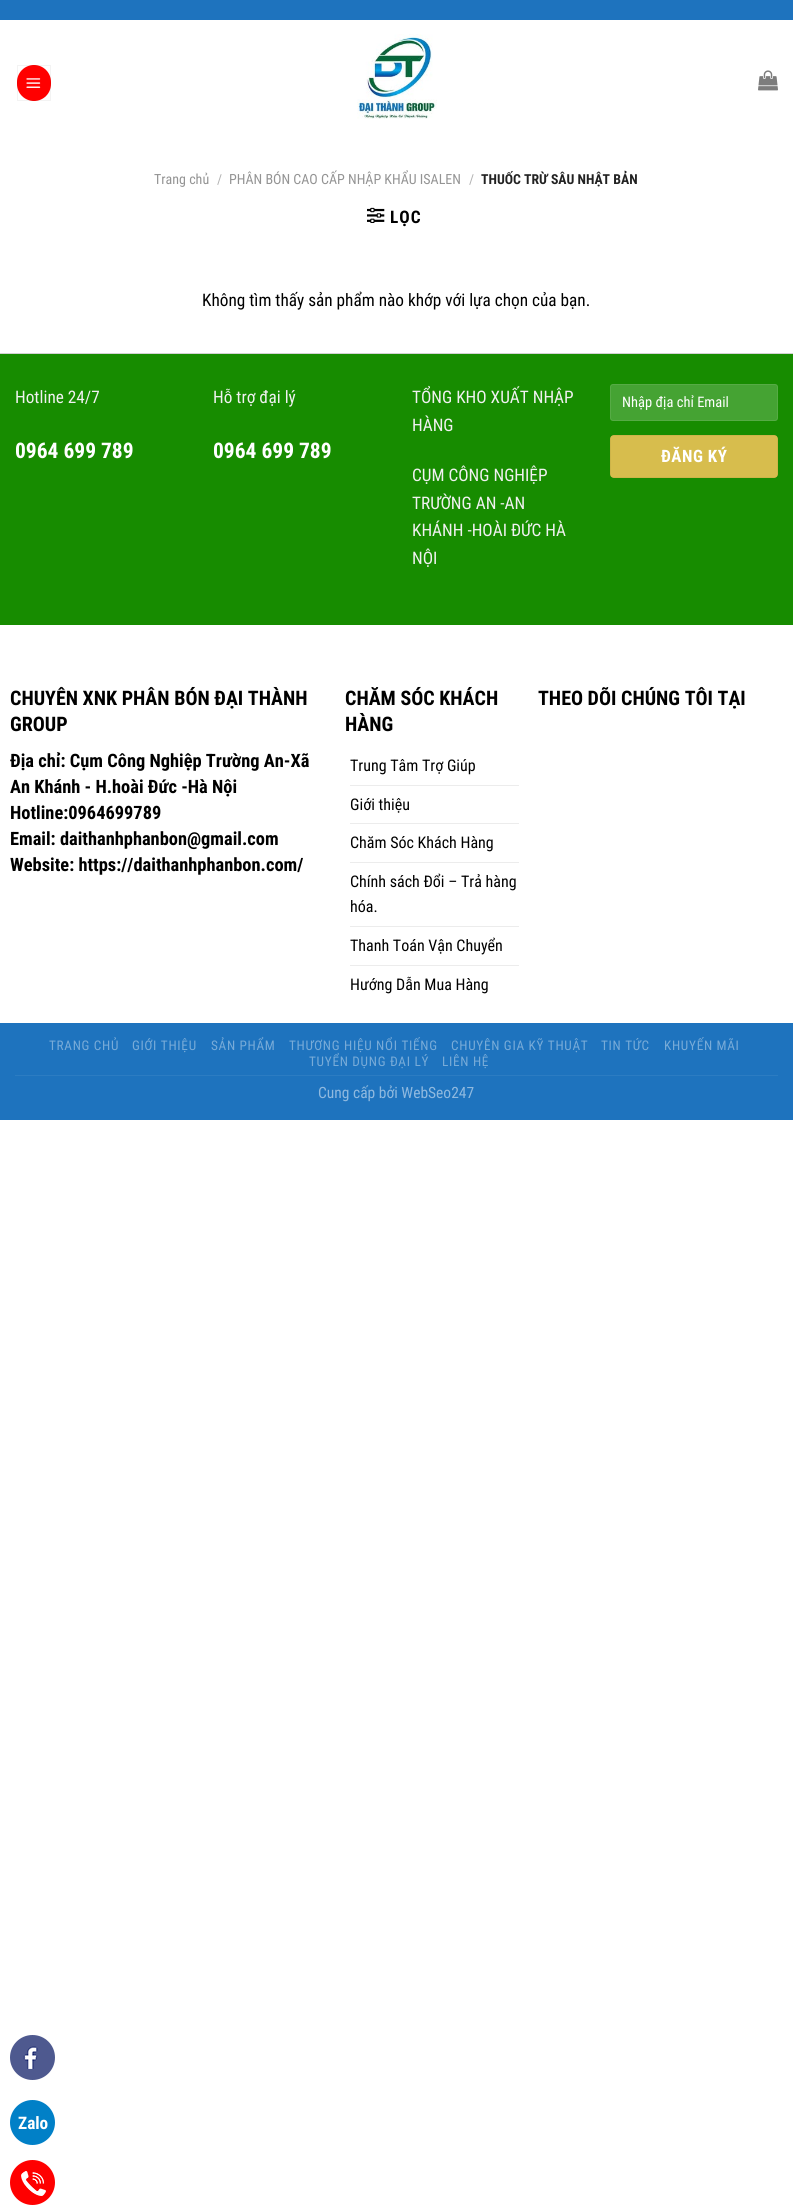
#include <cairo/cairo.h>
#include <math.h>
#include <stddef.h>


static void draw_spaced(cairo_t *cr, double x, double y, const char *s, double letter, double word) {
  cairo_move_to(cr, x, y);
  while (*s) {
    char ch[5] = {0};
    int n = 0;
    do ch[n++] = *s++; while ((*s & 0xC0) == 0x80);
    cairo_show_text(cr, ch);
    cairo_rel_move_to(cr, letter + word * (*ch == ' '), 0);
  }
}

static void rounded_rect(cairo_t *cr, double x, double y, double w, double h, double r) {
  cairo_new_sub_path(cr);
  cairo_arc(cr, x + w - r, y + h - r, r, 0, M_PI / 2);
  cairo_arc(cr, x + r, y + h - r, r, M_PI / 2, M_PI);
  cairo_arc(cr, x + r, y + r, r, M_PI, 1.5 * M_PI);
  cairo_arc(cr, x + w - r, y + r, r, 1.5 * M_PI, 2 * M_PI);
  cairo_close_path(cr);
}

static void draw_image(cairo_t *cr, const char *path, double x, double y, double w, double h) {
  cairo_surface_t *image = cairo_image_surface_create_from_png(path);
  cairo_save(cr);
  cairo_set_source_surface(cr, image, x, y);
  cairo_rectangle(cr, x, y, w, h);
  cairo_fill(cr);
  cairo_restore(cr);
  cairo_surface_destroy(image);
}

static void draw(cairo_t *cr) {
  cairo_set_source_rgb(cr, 1, 1, 1);
  cairo_paint(cr);
  cairo_set_source_rgb(cr, 30 / 255.0, 115 / 255.0, 190 / 255.0);
  cairo_rectangle(cr, 0, 0, 793, 20);
  cairo_fill(cr);
  cairo_set_source_rgb(cr, 1, 0, 0);
  rounded_rect(cr, 17, 65, 34, 36, 17);
  cairo_fill(cr);
  cairo_rectangle(cr, 17.5, 65.5, 33, 35);
  cairo_set_source_rgba(cr, 0, 0, 0, 0.05);
  cairo_set_line_width(cr, 1);
  cairo_stroke(cr);
  draw_image(cr, "images/1.png", 26, 78, 15, 10);
  draw_image(cr, "images/2.png", 357, 34, 80, 85);
  draw_image(cr, "images/3.png", 758, 70, 20, 21);
  draw_image(cr, "images/4.png", 367, 207, 18, 16);
  cairo_set_source_rgb(cr, 210 / 255.0, 210 / 255.0, 210 / 255.0);
  cairo_rectangle(cr, 0, 353, 793, 1);
  cairo_fill(cr);
  cairo_set_source_rgb(cr, 23 / 255.0, 140 / 255.0, 0);
  cairo_rectangle(cr, 0, 354, 793, 271);
  cairo_fill(cr);
  cairo_set_source_rgb(cr, 69 / 255.0, 163 / 255.0, 51 / 255.0);
  rounded_rect(cr, 610, 384, 168, 37, 3);
  cairo_fill(cr);
  rounded_rect(cr, 610.5, 384.5, 167, 36, 2.5);
  cairo_set_source_rgba(cr, 1, 1, 1, 0.09);
  cairo_stroke(cr);
  cairo_set_source_rgb(cr, 215 / 255.0, 189 / 255.0, 77 / 255.0);
  rounded_rect(cr, 610, 435, 168, 43, 4);
  cairo_fill(cr);
  cairo_rectangle(cr, 610.5, 435.5, 167, 42);
  cairo_set_source_rgba(cr, 0, 0, 0, 0.05);
  cairo_stroke(cr);
  cairo_set_source_rgb(cr, 236 / 255.0, 236 / 255.0, 236 / 255.0);
  cairo_rectangle(cr, 350, 785, 169, 1);
  cairo_fill(cr);
  cairo_rectangle(cr, 350, 823, 169, 1);
  cairo_fill(cr);
  cairo_rectangle(cr, 350, 862, 169, 1);
  cairo_fill(cr);
  cairo_rectangle(cr, 350, 926, 169, 1);
  cairo_fill(cr);
  cairo_rectangle(cr, 350, 965, 169, 1);
  cairo_fill(cr);
  cairo_set_source_rgb(cr, 30 / 255.0, 115 / 255.0, 190 / 255.0);
  cairo_rectangle(cr, 0, 1023, 793, 97);
  cairo_fill(cr);
  cairo_set_source_rgb(cr, 44 / 255.0, 124 / 255.0, 194 / 255.0);
  cairo_rectangle(cr, 15, 1075, 763, 1);
  cairo_fill(cr);
  cairo_set_source_rgb(cr, 78 / 255.0, 89 / 255.0, 143 / 255.0);
  cairo_arc(cr, 32.5, 2057.5, 22.5, 0, 2 * M_PI);
  cairo_fill(cr);
  draw_image(cr, "images/5.png", 23, 2046, 15, 23);
  cairo_set_source_rgb(cr, 1 / 255.0, 128 / 255.0, 199 / 255.0);
  cairo_arc(cr, 32.5, 2122.5, 22.5, 0, 2 * M_PI);
  cairo_fill(cr);
  cairo_set_source_rgb(cr, 1, 0, 0);
  cairo_arc(cr, 32.5, 2182.5, 22.5, 0, 2 * M_PI);
  cairo_fill(cr);
  draw_image(cr, "images/6.png", 21, 2171, 25, 25);
  cairo_select_font_face(cr, "Roboto Condensed", CAIRO_FONT_SLANT_NORMAL, CAIRO_FONT_WEIGHT_NORMAL);
  cairo_set_font_size(cr, 14);
  cairo_set_source_rgb(cr, 148 / 255.0, 148 / 255.0, 148 / 255.0);
  cairo_move_to(cr, 154, 184);
  cairo_show_text(cr, "Trang chủ");
  cairo_set_font_size(cr, 13.75);
  cairo_set_source_rgb(cr, 178 / 255.0, 178 / 255.0, 178 / 255.0);
  cairo_move_to(cr, 217, 184);
  cairo_show_text(cr, "/");
  cairo_set_font_size(cr, 14);
  cairo_set_source_rgb(cr, 148 / 255.0, 148 / 255.0, 148 / 255.0);
  cairo_move_to(cr, 229, 184);
  cairo_show_text(cr, "PHÂN BÓN CAO CẤP NHẬP KHẨU ISALEN");
  cairo_set_font_size(cr, 13.75);
  cairo_set_source_rgb(cr, 178 / 255.0, 178 / 255.0, 178 / 255.0);
  cairo_move_to(cr, 469, 184);
  cairo_show_text(cr, "/");
  cairo_select_font_face(cr, "Roboto Condensed", CAIRO_FONT_SLANT_NORMAL, CAIRO_FONT_WEIGHT_BOLD);
  cairo_set_source_rgb(cr, 34 / 255.0, 34 / 255.0, 34 / 255.0);
  cairo_move_to(cr, 481, 184);
  cairo_show_text(cr, "THUỐC TRỪ SÂU NHẬT BẢN");
  cairo_set_font_size(cr, 17.25);
  cairo_set_source_rgb(cr, 0, 0, 0);
  draw_spaced(cr, 390, 223, "LỌC", 1, 0);
  cairo_select_font_face(cr, "Roboto Condensed", CAIRO_FONT_SLANT_NORMAL, CAIRO_FONT_WEIGHT_NORMAL);
  cairo_move_to(cr, 202, 306);
  cairo_show_text(cr, "Không tìm thấy sản phẩm nào khớp với lựa chọn của bạn.");
  cairo_set_source_rgb(cr, 241 / 255.0, 241 / 255.0, 241 / 255.0);
  cairo_move_to(cr, 15, 403);
  cairo_show_text(cr, "Hotline 24/7");
  cairo_select_font_face(cr, "Roboto Condensed", CAIRO_FONT_SLANT_NORMAL, CAIRO_FONT_WEIGHT_BOLD);
  cairo_set_font_size(cr, 21.5);
  cairo_set_source_rgb(cr, 1, 1, 1);
  cairo_move_to(cr, 15, 458);
  cairo_show_text(cr, "0964 699 789");
  cairo_select_font_face(cr, "Roboto Condensed", CAIRO_FONT_SLANT_NORMAL, CAIRO_FONT_WEIGHT_NORMAL);
  cairo_set_font_size(cr, 17.25);
  cairo_set_source_rgb(cr, 241 / 255.0, 241 / 255.0, 241 / 255.0);
  cairo_move_to(cr, 213, 403);
  cairo_show_text(cr, "Hỗ trợ đại lý");
  cairo_select_font_face(cr, "Roboto Condensed", CAIRO_FONT_SLANT_NORMAL, CAIRO_FONT_WEIGHT_BOLD);
  cairo_set_font_size(cr, 21.5);
  cairo_set_source_rgb(cr, 1, 1, 1);
  cairo_move_to(cr, 213, 458);
  cairo_show_text(cr, "0964 699 789");
  cairo_select_font_face(cr, "Roboto Condensed", CAIRO_FONT_SLANT_NORMAL, CAIRO_FONT_WEIGHT_NORMAL);
  cairo_set_font_size(cr, 17.25);
  cairo_set_source_rgb(cr, 241 / 255.0, 241 / 255.0, 241 / 255.0);
  cairo_move_to(cr, 412, 403);
  cairo_show_text(cr, "TỔNG KHO XUẤT NHẬP");
  cairo_move_to(cr, 412, 431);
  cairo_show_text(cr, "HÀNG");
  cairo_move_to(cr, 412, 481);
  cairo_show_text(cr, "CỤM CÔNG NGHIỆP");
  cairo_move_to(cr, 412, 509);
  cairo_show_text(cr, "TRƯỜNG AN -AN");
  cairo_move_to(cr, 412, 536);
  cairo_show_text(cr, "KHÁNH -HOÀI ĐỨC HÀ");
  cairo_move_to(cr, 412, 564);
  cairo_show_text(cr, "NỘI");
  cairo_set_font_size(cr, 14.5);
  cairo_set_source_rgb(cr, 1, 1, 1);
  cairo_move_to(cr, 622, 407);
  cairo_show_text(cr, "Nhập địa chỉ Email");
  cairo_select_font_face(cr, "Roboto Condensed", CAIRO_FONT_SLANT_NORMAL, CAIRO_FONT_WEIGHT_BOLD);
  cairo_set_font_size(cr, 17);
  draw_spaced(cr, 661, 462, "ĐĂNG KÝ", 0.5, 0);
  cairo_set_font_size(cr, 20);
  cairo_set_source_rgb(cr, 0, 0, 0);
  cairo_move_to(cr, 10, 705);
  cairo_show_text(cr, "CHUYÊN XNK PHÂN BÓN ĐẠI THÀNH");
  cairo_move_to(cr, 10, 731);
  cairo_show_text(cr, "GROUP");
  cairo_set_font_size(cr, 18.4);
  cairo_move_to(cr, 10, 767);
  cairo_show_text(cr, "Địa chỉ: Cụm Công Nghiệp Trường An-Xã");
  cairo_move_to(cr, 10, 793);
  cairo_show_text(cr, "An Khánh - H.hoài Đức -Hà Nội");
  cairo_move_to(cr, 10, 819);
  cairo_show_text(cr, "Hotline:0964699789");
  cairo_move_to(cr, 10, 845);
  cairo_show_text(cr, "Email: daithanhphanbon@gmail.com");
  cairo_move_to(cr, 10, 871);
  cairo_show_text(cr, "Website: https://daithanhphanbon.com/");
  cairo_set_font_size(cr, 20);
  cairo_move_to(cr, 345, 705);
  cairo_show_text(cr, "CHĂM SÓC KHÁCH");
  cairo_move_to(cr, 345, 731);
  cairo_show_text(cr, "HÀNG");
  cairo_select_font_face(cr, "Roboto Condensed", CAIRO_FONT_SLANT_NORMAL, CAIRO_FONT_WEIGHT_NORMAL);
  cairo_set_font_size(cr, 16);
  cairo_move_to(cr, 350, 771);
  cairo_show_text(cr, "Trung Tâm Trợ Giúp");
  cairo_move_to(cr, 350, 810);
  cairo_show_text(cr, "Giới thiệu");
  cairo_move_to(cr, 350, 848);
  cairo_show_text(cr, "Chăm Sóc Khách Hàng");
  cairo_move_to(cr, 350, 887);
  cairo_show_text(cr, "Chính sách Đổi – Trả hàng");
  cairo_move_to(cr, 350, 912);
  cairo_show_text(cr, "hóa.");
  cairo_move_to(cr, 350, 951);
  cairo_show_text(cr, "Thanh Toán Vận Chuyển");
  cairo_move_to(cr, 350, 990);
  cairo_show_text(cr, "Hướng Dẫn Mua Hàng");
  cairo_select_font_face(cr, "Roboto Condensed", CAIRO_FONT_SLANT_NORMAL, CAIRO_FONT_WEIGHT_BOLD);
  cairo_set_font_size(cr, 20);
  cairo_move_to(cr, 538, 705);
  cairo_show_text(cr, "THEO DÕI CHÚNG TÔI TẠI");
  cairo_select_font_face(cr, "Roboto Condensed", CAIRO_FONT_SLANT_NORMAL, CAIRO_FONT_WEIGHT_NORMAL);
  cairo_set_font_size(cr, 13.25);
  cairo_set_source_rgb(cr, 120 / 255.0, 171 / 255.0, 216 / 255.0);
  draw_spaced(cr, 49, 1050, "TRANG CHỦ", 0.7, 0);
  draw_spaced(cr, 132, 1050, "GIỚI THIỆU", 0.7, 0);
  draw_spaced(cr, 211, 1050, "SẢN PHẨM", 0.7, 0);
  draw_spaced(cr, 289, 1050, "THƯƠNG HIỆU NỔI TIẾNG", 0.7, 0);
  draw_spaced(cr, 451, 1050, "CHUYÊN GIA KỸ THUẬT", 0.7, 0);
  draw_spaced(cr, 601, 1050, "TIN TỨC", 0.7, 0);
  draw_spaced(cr, 664, 1050, "KHUYẾN MÃI", 0.7, 0);
  draw_spaced(cr, 309, 1066, "TUYỂN DỤNG ĐẠI LÝ", 0.7, 0);
  draw_spaced(cr, 442, 1066, "LIÊN HỆ", 0.7, 0);
  cairo_set_font_size(cr, 15.5);
  cairo_set_source_rgb(cr, 143 / 255.0, 185 / 255.0, 223 / 255.0);
  cairo_move_to(cr, 318, 1098);
  cairo_show_text(cr, "Cung cấp bởi WebSeo247");
  cairo_select_font_face(cr, "Roboto Condensed", CAIRO_FONT_SLANT_NORMAL, CAIRO_FONT_WEIGHT_BOLD);
  cairo_set_font_size(cr, 17.25);
  cairo_set_source_rgb(cr, 1, 1, 1);
  cairo_move_to(cr, 18, 2129);
  cairo_show_text(cr, "Zalo");
}

int main(void) {
  cairo_surface_t *surface = cairo_image_surface_create(CAIRO_FORMAT_RGB24, 793, 2205);
  cairo_t *cr = cairo_create(surface);
  cairo_font_options_t *options = cairo_font_options_create();
  cairo_font_options_set_hint_metrics(options, CAIRO_HINT_METRICS_OFF);
  cairo_font_options_set_hint_style(options, CAIRO_HINT_STYLE_NONE);
  cairo_set_font_options(cr, options);
  cairo_set_miter_limit(cr, 4);
  draw(cr);
  cairo_surface_write_to_png(surface, "out.png");
  cairo_font_options_destroy(options);
  cairo_destroy(cr);
  cairo_surface_destroy(surface);
  return 0;
}
